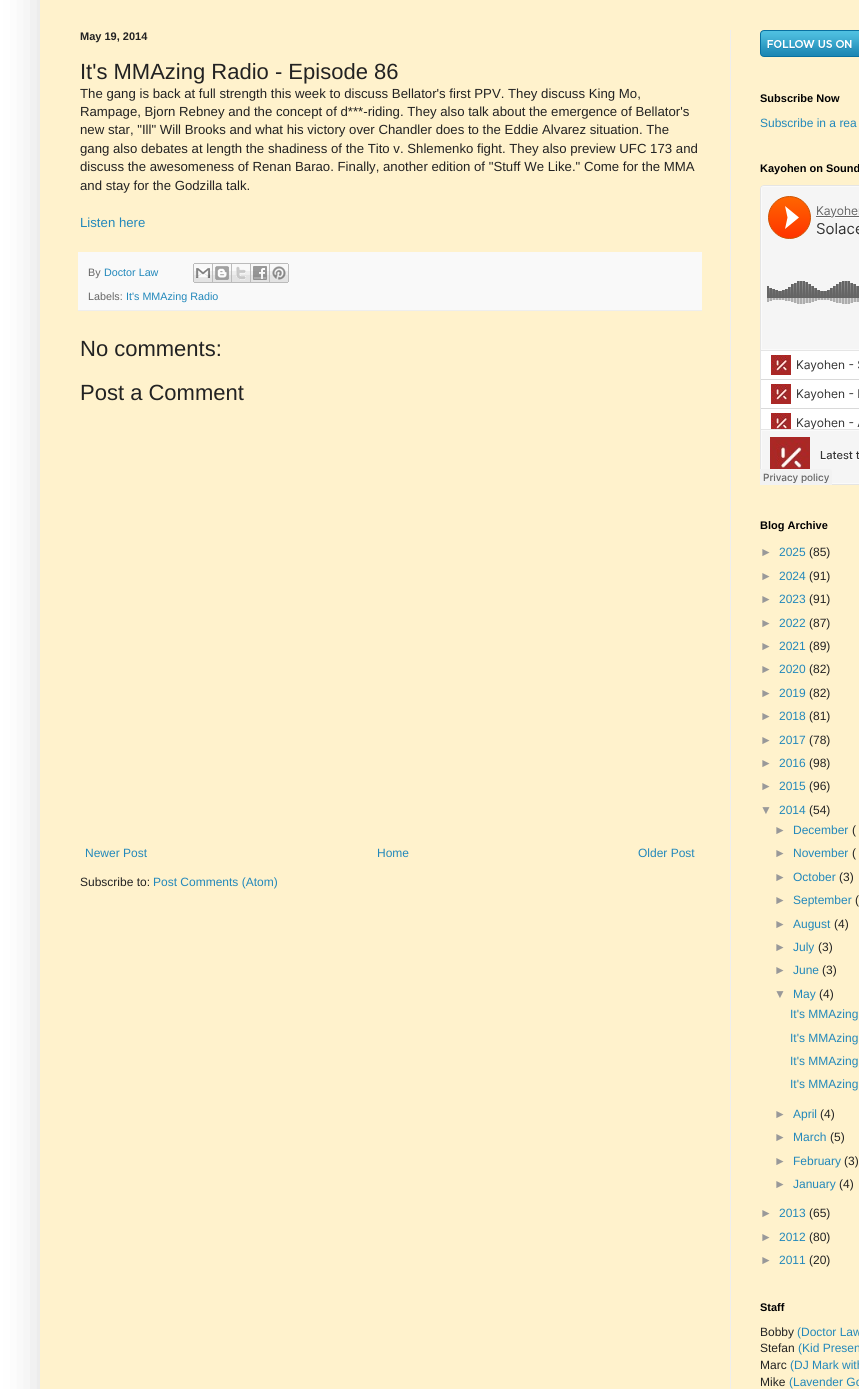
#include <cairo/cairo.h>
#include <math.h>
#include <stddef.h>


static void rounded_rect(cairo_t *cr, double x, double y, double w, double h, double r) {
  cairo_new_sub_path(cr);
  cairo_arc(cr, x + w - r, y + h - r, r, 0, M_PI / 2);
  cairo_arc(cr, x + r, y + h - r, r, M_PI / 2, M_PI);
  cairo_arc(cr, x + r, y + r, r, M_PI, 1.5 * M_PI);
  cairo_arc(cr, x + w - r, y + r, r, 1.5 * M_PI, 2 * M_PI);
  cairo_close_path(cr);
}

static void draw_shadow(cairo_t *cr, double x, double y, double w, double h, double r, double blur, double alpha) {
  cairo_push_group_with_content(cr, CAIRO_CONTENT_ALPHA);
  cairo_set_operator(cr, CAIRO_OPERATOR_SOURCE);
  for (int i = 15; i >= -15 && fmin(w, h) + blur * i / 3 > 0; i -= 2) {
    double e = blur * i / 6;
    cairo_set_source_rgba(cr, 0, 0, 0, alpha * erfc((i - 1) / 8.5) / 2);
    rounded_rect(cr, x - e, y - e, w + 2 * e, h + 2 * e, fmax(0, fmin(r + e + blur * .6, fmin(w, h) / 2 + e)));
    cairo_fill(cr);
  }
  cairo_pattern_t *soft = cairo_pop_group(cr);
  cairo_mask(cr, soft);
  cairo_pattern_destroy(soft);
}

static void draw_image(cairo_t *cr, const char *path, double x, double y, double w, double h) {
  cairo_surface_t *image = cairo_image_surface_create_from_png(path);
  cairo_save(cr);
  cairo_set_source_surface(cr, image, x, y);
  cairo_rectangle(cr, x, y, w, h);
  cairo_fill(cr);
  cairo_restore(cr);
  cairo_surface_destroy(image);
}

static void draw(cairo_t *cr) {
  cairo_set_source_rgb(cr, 1, 1, 1);
  cairo_paint(cr);
  cairo_set_source_rgb(cr, 0, 0, 0);
  draw_shadow(cr, 40, -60, 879, 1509, 0, 20, 0.15);
  cairo_set_source_rgb(cr, 1, 242 / 255.0, 204 / 255.0);
  cairo_rectangle(cr, 40, 0, 819, 1389);
  cairo_fill(cr);
  cairo_set_source_rgb(cr, 238 / 255.0, 238 / 255.0, 238 / 255.0);
  cairo_rectangle(cr, 730, 30, 1, 1359);
  cairo_fill(cr);
  cairo_set_source_rgb(cr, 249 / 255.0, 249 / 255.0, 249 / 255.0);
  cairo_rectangle(cr, 78, 252, 624, 58);
  cairo_fill(cr);
  cairo_set_source_rgb(cr, 238 / 255.0, 238 / 255.0, 238 / 255.0);
  cairo_rectangle(cr, 78, 310, 624, 1);
  cairo_fill(cr);
  draw_image(cr, "images/1.png", 193, 263, 20, 20);
  draw_image(cr, "images/2.png", 213, 263, 19, 20);
  draw_image(cr, "images/3.png", 232, 263, 19, 20);
  draw_image(cr, "images/4.png", 251, 263, 19, 20);
  draw_image(cr, "images/5.png", 270, 263, 19, 20);
  draw_image(cr, "images/6.png", 760, 30, 99, 27);
  draw_image(cr, "images/7.png", 760, 185, 99, 300);
  cairo_select_font_face(cr, "Liberation Sans", CAIRO_FONT_SLANT_NORMAL, CAIRO_FONT_WEIGHT_BOLD);
  cairo_set_font_size(cr, 11);
  cairo_set_source_rgb(cr, 34 / 255.0, 34 / 255.0, 34 / 255.0);
  cairo_move_to(cr, 80, 40);
  cairo_show_text(cr, "May 19, 2014");
  cairo_select_font_face(cr, "Liberation Sans", CAIRO_FONT_SLANT_NORMAL, CAIRO_FONT_WEIGHT_NORMAL);
  cairo_set_font_size(cr, 22);
  cairo_move_to(cr, 80, 79);
  cairo_show_text(cr, "It's MMAzing Radio - Episode 86");
  cairo_set_font_size(cr, 13.2);
  cairo_move_to(cr, 80, 98);
  cairo_show_text(cr, "The gang is back at full strength this week to discuss Bellator's first PPV. They discuss King Mo,");
  cairo_move_to(cr, 80, 116);
  cairo_show_text(cr, "Rampage, Bjorn Rebney and the concept of d***-riding. They also talk about the emergence of Bellator's");
  cairo_move_to(cr, 80, 134);
  cairo_show_text(cr, "new star, \"Ill\" Will Brooks and what his victory over Chandler does to the Eddie Alvarez situation. The");
  cairo_move_to(cr, 80, 153);
  cairo_show_text(cr, "gang also debates at length the shadiness of the Tito v. Shlemenko fight. They also preview UFC 173 and");
  cairo_move_to(cr, 80, 171);
  cairo_show_text(cr, "discuss the awesomeness of Renan Barao. Finally, another edition of \"Stuff We Like.\" Come for the MMA");
  cairo_move_to(cr, 80, 190);
  cairo_show_text(cr, "and stay for the Godzilla talk.");
  cairo_set_source_rgb(cr, 34 / 255.0, 136 / 255.0, 187 / 255.0);
  cairo_move_to(cr, 80, 227);
  cairo_show_text(cr, "Listen here");
  cairo_set_font_size(cr, 10.75);
  cairo_set_source_rgb(cr, 102 / 255.0, 102 / 255.0, 102 / 255.0);
  cairo_move_to(cr, 88, 276);
  cairo_show_text(cr, "By");
  cairo_set_source_rgb(cr, 34 / 255.0, 136 / 255.0, 187 / 255.0);
  cairo_move_to(cr, 104, 276);
  cairo_show_text(cr, "Doctor Law");
  cairo_set_source_rgb(cr, 102 / 255.0, 102 / 255.0, 102 / 255.0);
  cairo_move_to(cr, 88, 300);
  cairo_show_text(cr, "Labels:");
  cairo_set_source_rgb(cr, 34 / 255.0, 136 / 255.0, 187 / 255.0);
  cairo_move_to(cr, 126, 300);
  cairo_show_text(cr, "It's MMAzing Radio");
  cairo_set_font_size(cr, 22);
  cairo_set_source_rgb(cr, 34 / 255.0, 34 / 255.0, 34 / 255.0);
  cairo_move_to(cr, 80, 356);
  cairo_show_text(cr, "No comments:");
  cairo_move_to(cr, 80, 400);
  cairo_show_text(cr, "Post a Comment");
  cairo_set_font_size(cr, 12);
  cairo_set_source_rgb(cr, 34 / 255.0, 136 / 255.0, 187 / 255.0);
  cairo_move_to(cr, 85, 857);
  cairo_show_text(cr, "Newer Post");
  cairo_move_to(cr, 377, 857);
  cairo_show_text(cr, "Home");
  cairo_move_to(cr, 638, 857);
  cairo_show_text(cr, "Older Post");
  cairo_set_source_rgb(cr, 34 / 255.0, 34 / 255.0, 34 / 255.0);
  cairo_move_to(cr, 80, 886);
  cairo_show_text(cr, "Subscribe to:");
  cairo_set_source_rgb(cr, 34 / 255.0, 136 / 255.0, 187 / 255.0);
  cairo_move_to(cr, 153, 886);
  cairo_show_text(cr, "Post Comments (Atom)");
  cairo_select_font_face(cr, "Liberation Sans", CAIRO_FONT_SLANT_NORMAL, CAIRO_FONT_WEIGHT_BOLD);
  cairo_set_font_size(cr, 11);
  cairo_set_source_rgb(cr, 0, 0, 0);
  cairo_move_to(cr, 760, 102);
  cairo_show_text(cr, "Subscribe Now");
  cairo_select_font_face(cr, "Liberation Sans", CAIRO_FONT_SLANT_NORMAL, CAIRO_FONT_WEIGHT_NORMAL);
  cairo_set_font_size(cr, 12);
  cairo_set_source_rgb(cr, 34 / 255.0, 136 / 255.0, 187 / 255.0);
  cairo_move_to(cr, 760, 127);
  cairo_show_text(cr, "Subscribe in a rea");
  cairo_select_font_face(cr, "Liberation Sans", CAIRO_FONT_SLANT_NORMAL, CAIRO_FONT_WEIGHT_BOLD);
  cairo_set_font_size(cr, 11);
  cairo_set_source_rgb(cr, 0, 0, 0);
  cairo_move_to(cr, 760, 172);
  cairo_show_text(cr, "Kayohen on Sound");
  cairo_move_to(cr, 760, 529);
  cairo_show_text(cr, "Blog Archive");
  cairo_select_font_face(cr, "Liberation Sans", CAIRO_FONT_SLANT_NORMAL, CAIRO_FONT_WEIGHT_NORMAL);
  cairo_set_font_size(cr, 12);
  cairo_set_source_rgb(cr, 153 / 255.0, 153 / 255.0, 153 / 255.0);
  cairo_move_to(cr, 760, 556);
  cairo_show_text(cr, "►");
  cairo_set_source_rgb(cr, 34 / 255.0, 136 / 255.0, 187 / 255.0);
  cairo_move_to(cr, 779, 556);
  cairo_show_text(cr, "2025");
  cairo_set_source_rgb(cr, 34 / 255.0, 34 / 255.0, 34 / 255.0);
  cairo_move_to(cr, 809, 556);
  cairo_show_text(cr, "(85)");
  cairo_set_source_rgb(cr, 153 / 255.0, 153 / 255.0, 153 / 255.0);
  cairo_move_to(cr, 760, 580);
  cairo_show_text(cr, "►");
  cairo_set_source_rgb(cr, 34 / 255.0, 136 / 255.0, 187 / 255.0);
  cairo_move_to(cr, 779, 580);
  cairo_show_text(cr, "2024");
  cairo_set_source_rgb(cr, 34 / 255.0, 34 / 255.0, 34 / 255.0);
  cairo_move_to(cr, 809, 580);
  cairo_show_text(cr, "(91)");
  cairo_set_source_rgb(cr, 153 / 255.0, 153 / 255.0, 153 / 255.0);
  cairo_move_to(cr, 760, 603);
  cairo_show_text(cr, "►");
  cairo_set_source_rgb(cr, 34 / 255.0, 136 / 255.0, 187 / 255.0);
  cairo_move_to(cr, 779, 603);
  cairo_show_text(cr, "2023");
  cairo_set_source_rgb(cr, 34 / 255.0, 34 / 255.0, 34 / 255.0);
  cairo_move_to(cr, 809, 603);
  cairo_show_text(cr, "(91)");
  cairo_set_source_rgb(cr, 153 / 255.0, 153 / 255.0, 153 / 255.0);
  cairo_move_to(cr, 760, 627);
  cairo_show_text(cr, "►");
  cairo_set_source_rgb(cr, 34 / 255.0, 136 / 255.0, 187 / 255.0);
  cairo_move_to(cr, 779, 627);
  cairo_show_text(cr, "2022");
  cairo_set_source_rgb(cr, 34 / 255.0, 34 / 255.0, 34 / 255.0);
  cairo_move_to(cr, 809, 627);
  cairo_show_text(cr, "(87)");
  cairo_set_source_rgb(cr, 153 / 255.0, 153 / 255.0, 153 / 255.0);
  cairo_move_to(cr, 760, 650);
  cairo_show_text(cr, "►");
  cairo_set_source_rgb(cr, 34 / 255.0, 136 / 255.0, 187 / 255.0);
  cairo_move_to(cr, 779, 650);
  cairo_show_text(cr, "2021");
  cairo_set_source_rgb(cr, 34 / 255.0, 34 / 255.0, 34 / 255.0);
  cairo_move_to(cr, 809, 650);
  cairo_show_text(cr, "(89)");
  cairo_set_source_rgb(cr, 153 / 255.0, 153 / 255.0, 153 / 255.0);
  cairo_move_to(cr, 760, 673);
  cairo_show_text(cr, "►");
  cairo_set_source_rgb(cr, 34 / 255.0, 136 / 255.0, 187 / 255.0);
  cairo_move_to(cr, 779, 673);
  cairo_show_text(cr, "2020");
  cairo_set_source_rgb(cr, 34 / 255.0, 34 / 255.0, 34 / 255.0);
  cairo_move_to(cr, 809, 673);
  cairo_show_text(cr, "(82)");
  cairo_set_source_rgb(cr, 153 / 255.0, 153 / 255.0, 153 / 255.0);
  cairo_move_to(cr, 760, 697);
  cairo_show_text(cr, "►");
  cairo_set_source_rgb(cr, 34 / 255.0, 136 / 255.0, 187 / 255.0);
  cairo_move_to(cr, 779, 697);
  cairo_show_text(cr, "2019");
  cairo_set_source_rgb(cr, 34 / 255.0, 34 / 255.0, 34 / 255.0);
  cairo_move_to(cr, 809, 697);
  cairo_show_text(cr, "(82)");
  cairo_set_source_rgb(cr, 153 / 255.0, 153 / 255.0, 153 / 255.0);
  cairo_move_to(cr, 760, 720);
  cairo_show_text(cr, "►");
  cairo_set_source_rgb(cr, 34 / 255.0, 136 / 255.0, 187 / 255.0);
  cairo_move_to(cr, 779, 720);
  cairo_show_text(cr, "2018");
  cairo_set_source_rgb(cr, 34 / 255.0, 34 / 255.0, 34 / 255.0);
  cairo_move_to(cr, 809, 720);
  cairo_show_text(cr, "(81)");
  cairo_set_source_rgb(cr, 153 / 255.0, 153 / 255.0, 153 / 255.0);
  cairo_move_to(cr, 760, 744);
  cairo_show_text(cr, "►");
  cairo_set_source_rgb(cr, 34 / 255.0, 136 / 255.0, 187 / 255.0);
  cairo_move_to(cr, 779, 744);
  cairo_show_text(cr, "2017");
  cairo_set_source_rgb(cr, 34 / 255.0, 34 / 255.0, 34 / 255.0);
  cairo_move_to(cr, 809, 744);
  cairo_show_text(cr, "(78)");
  cairo_set_source_rgb(cr, 153 / 255.0, 153 / 255.0, 153 / 255.0);
  cairo_move_to(cr, 760, 767);
  cairo_show_text(cr, "►");
  cairo_set_source_rgb(cr, 34 / 255.0, 136 / 255.0, 187 / 255.0);
  cairo_move_to(cr, 779, 767);
  cairo_show_text(cr, "2016");
  cairo_set_source_rgb(cr, 34 / 255.0, 34 / 255.0, 34 / 255.0);
  cairo_move_to(cr, 809, 767);
  cairo_show_text(cr, "(98)");
  cairo_set_source_rgb(cr, 153 / 255.0, 153 / 255.0, 153 / 255.0);
  cairo_move_to(cr, 760, 790);
  cairo_show_text(cr, "►");
  cairo_set_source_rgb(cr, 34 / 255.0, 136 / 255.0, 187 / 255.0);
  cairo_move_to(cr, 779, 790);
  cairo_show_text(cr, "2015");
  cairo_set_source_rgb(cr, 34 / 255.0, 34 / 255.0, 34 / 255.0);
  cairo_move_to(cr, 809, 790);
  cairo_show_text(cr, "(96)");
  cairo_set_source_rgb(cr, 153 / 255.0, 153 / 255.0, 153 / 255.0);
  cairo_move_to(cr, 760, 814);
  cairo_show_text(cr, "▼");
  cairo_set_source_rgb(cr, 34 / 255.0, 136 / 255.0, 187 / 255.0);
  cairo_move_to(cr, 779, 814);
  cairo_show_text(cr, "2014");
  cairo_set_source_rgb(cr, 34 / 255.0, 34 / 255.0, 34 / 255.0);
  cairo_move_to(cr, 809, 814);
  cairo_show_text(cr, "(54)");
  cairo_set_source_rgb(cr, 153 / 255.0, 153 / 255.0, 153 / 255.0);
  cairo_move_to(cr, 774, 834);
  cairo_show_text(cr, "►");
  cairo_set_source_rgb(cr, 34 / 255.0, 136 / 255.0, 187 / 255.0);
  cairo_move_to(cr, 793, 834);
  cairo_show_text(cr, "December");
  cairo_set_source_rgb(cr, 34 / 255.0, 34 / 255.0, 34 / 255.0);
  cairo_move_to(cr, 852, 834);
  cairo_show_text(cr, "(");
  cairo_set_source_rgb(cr, 153 / 255.0, 153 / 255.0, 153 / 255.0);
  cairo_move_to(cr, 774, 857);
  cairo_show_text(cr, "►");
  cairo_set_source_rgb(cr, 34 / 255.0, 136 / 255.0, 187 / 255.0);
  cairo_move_to(cr, 793, 857);
  cairo_show_text(cr, "November");
  cairo_set_source_rgb(cr, 34 / 255.0, 34 / 255.0, 34 / 255.0);
  cairo_move_to(cr, 852, 857);
  cairo_show_text(cr, "(");
  cairo_set_source_rgb(cr, 153 / 255.0, 153 / 255.0, 153 / 255.0);
  cairo_move_to(cr, 774, 881);
  cairo_show_text(cr, "►");
  cairo_set_source_rgb(cr, 34 / 255.0, 136 / 255.0, 187 / 255.0);
  cairo_move_to(cr, 793, 881);
  cairo_show_text(cr, "October");
  cairo_set_source_rgb(cr, 34 / 255.0, 34 / 255.0, 34 / 255.0);
  cairo_move_to(cr, 839, 881);
  cairo_show_text(cr, "(3)");
  cairo_set_source_rgb(cr, 153 / 255.0, 153 / 255.0, 153 / 255.0);
  cairo_move_to(cr, 774, 904);
  cairo_show_text(cr, "►");
  cairo_set_source_rgb(cr, 34 / 255.0, 136 / 255.0, 187 / 255.0);
  cairo_move_to(cr, 793, 904);
  cairo_show_text(cr, "September");
  cairo_set_source_rgb(cr, 34 / 255.0, 34 / 255.0, 34 / 255.0);
  cairo_move_to(cr, 855, 904);
  cairo_show_text(cr, "(");
  cairo_set_source_rgb(cr, 153 / 255.0, 153 / 255.0, 153 / 255.0);
  cairo_move_to(cr, 774, 928);
  cairo_show_text(cr, "►");
  cairo_set_source_rgb(cr, 34 / 255.0, 136 / 255.0, 187 / 255.0);
  cairo_move_to(cr, 793, 928);
  cairo_show_text(cr, "August");
  cairo_set_source_rgb(cr, 34 / 255.0, 34 / 255.0, 34 / 255.0);
  cairo_move_to(cr, 834, 928);
  cairo_show_text(cr, "(4)");
  cairo_set_source_rgb(cr, 153 / 255.0, 153 / 255.0, 153 / 255.0);
  cairo_move_to(cr, 774, 951);
  cairo_show_text(cr, "►");
  cairo_set_source_rgb(cr, 34 / 255.0, 136 / 255.0, 187 / 255.0);
  cairo_move_to(cr, 793, 951);
  cairo_show_text(cr, "July");
  cairo_set_source_rgb(cr, 34 / 255.0, 34 / 255.0, 34 / 255.0);
  cairo_move_to(cr, 818, 951);
  cairo_show_text(cr, "(3)");
  cairo_set_source_rgb(cr, 153 / 255.0, 153 / 255.0, 153 / 255.0);
  cairo_move_to(cr, 774, 974);
  cairo_show_text(cr, "►");
  cairo_set_source_rgb(cr, 34 / 255.0, 136 / 255.0, 187 / 255.0);
  cairo_move_to(cr, 793, 974);
  cairo_show_text(cr, "June");
  cairo_set_source_rgb(cr, 34 / 255.0, 34 / 255.0, 34 / 255.0);
  cairo_move_to(cr, 822, 974);
  cairo_show_text(cr, "(3)");
  cairo_set_source_rgb(cr, 153 / 255.0, 153 / 255.0, 153 / 255.0);
  cairo_move_to(cr, 774, 998);
  cairo_show_text(cr, "▼");
  cairo_set_source_rgb(cr, 34 / 255.0, 136 / 255.0, 187 / 255.0);
  cairo_move_to(cr, 793, 998);
  cairo_show_text(cr, "May");
  cairo_set_source_rgb(cr, 34 / 255.0, 34 / 255.0, 34 / 255.0);
  cairo_move_to(cr, 819, 998);
  cairo_show_text(cr, "(4)");
  cairo_set_source_rgb(cr, 34 / 255.0, 136 / 255.0, 187 / 255.0);
  cairo_move_to(cr, 790, 1018);
  cairo_show_text(cr, "It's MMAzing");
  cairo_move_to(cr, 790, 1042);
  cairo_show_text(cr, "It's MMAzing");
  cairo_move_to(cr, 790, 1065);
  cairo_show_text(cr, "It's MMAzing");
  cairo_move_to(cr, 790, 1088);
  cairo_show_text(cr, "It's MMAzing");
  cairo_set_source_rgb(cr, 153 / 255.0, 153 / 255.0, 153 / 255.0);
  cairo_move_to(cr, 774, 1118);
  cairo_show_text(cr, "►");
  cairo_set_source_rgb(cr, 34 / 255.0, 136 / 255.0, 187 / 255.0);
  cairo_move_to(cr, 793, 1118);
  cairo_show_text(cr, "April");
  cairo_set_source_rgb(cr, 34 / 255.0, 34 / 255.0, 34 / 255.0);
  cairo_move_to(cr, 820, 1118);
  cairo_show_text(cr, "(4)");
  cairo_set_source_rgb(cr, 153 / 255.0, 153 / 255.0, 153 / 255.0);
  cairo_move_to(cr, 774, 1141);
  cairo_show_text(cr, "►");
  cairo_set_source_rgb(cr, 34 / 255.0, 136 / 255.0, 187 / 255.0);
  cairo_move_to(cr, 793, 1141);
  cairo_show_text(cr, "March");
  cairo_set_source_rgb(cr, 34 / 255.0, 34 / 255.0, 34 / 255.0);
  cairo_move_to(cr, 830, 1141);
  cairo_show_text(cr, "(5)");
  cairo_set_source_rgb(cr, 153 / 255.0, 153 / 255.0, 153 / 255.0);
  cairo_move_to(cr, 774, 1165);
  cairo_show_text(cr, "►");
  cairo_set_source_rgb(cr, 34 / 255.0, 136 / 255.0, 187 / 255.0);
  cairo_move_to(cr, 793, 1165);
  cairo_show_text(cr, "February");
  cairo_set_source_rgb(cr, 34 / 255.0, 34 / 255.0, 34 / 255.0);
  cairo_move_to(cr, 844, 1165);
  cairo_show_text(cr, "(3)");
  cairo_set_source_rgb(cr, 153 / 255.0, 153 / 255.0, 153 / 255.0);
  cairo_move_to(cr, 774, 1188);
  cairo_show_text(cr, "►");
  cairo_set_source_rgb(cr, 34 / 255.0, 136 / 255.0, 187 / 255.0);
  cairo_move_to(cr, 793, 1188);
  cairo_show_text(cr, "January");
  cairo_set_source_rgb(cr, 34 / 255.0, 34 / 255.0, 34 / 255.0);
  cairo_move_to(cr, 839, 1188);
  cairo_show_text(cr, "(4)");
  cairo_set_source_rgb(cr, 153 / 255.0, 153 / 255.0, 153 / 255.0);
  cairo_move_to(cr, 760, 1217);
  cairo_show_text(cr, "►");
  cairo_set_source_rgb(cr, 34 / 255.0, 136 / 255.0, 187 / 255.0);
  cairo_move_to(cr, 779, 1217);
  cairo_show_text(cr, "2013");
  cairo_set_source_rgb(cr, 34 / 255.0, 34 / 255.0, 34 / 255.0);
  cairo_move_to(cr, 809, 1217);
  cairo_show_text(cr, "(65)");
  cairo_set_source_rgb(cr, 153 / 255.0, 153 / 255.0, 153 / 255.0);
  cairo_move_to(cr, 760, 1241);
  cairo_show_text(cr, "►");
  cairo_set_source_rgb(cr, 34 / 255.0, 136 / 255.0, 187 / 255.0);
  cairo_move_to(cr, 779, 1241);
  cairo_show_text(cr, "2012");
  cairo_set_source_rgb(cr, 34 / 255.0, 34 / 255.0, 34 / 255.0);
  cairo_move_to(cr, 809, 1241);
  cairo_show_text(cr, "(80)");
  cairo_set_source_rgb(cr, 153 / 255.0, 153 / 255.0, 153 / 255.0);
  cairo_move_to(cr, 760, 1264);
  cairo_show_text(cr, "►");
  cairo_set_source_rgb(cr, 34 / 255.0, 136 / 255.0, 187 / 255.0);
  cairo_move_to(cr, 779, 1264);
  cairo_show_text(cr, "2011");
  cairo_set_source_rgb(cr, 34 / 255.0, 34 / 255.0, 34 / 255.0);
  cairo_move_to(cr, 809, 1264);
  cairo_show_text(cr, "(20)");
  cairo_select_font_face(cr, "Liberation Sans", CAIRO_FONT_SLANT_NORMAL, CAIRO_FONT_WEIGHT_BOLD);
  cairo_set_font_size(cr, 11);
  cairo_set_source_rgb(cr, 0, 0, 0);
  cairo_move_to(cr, 760, 1311);
  cairo_show_text(cr, "Staff");
  cairo_select_font_face(cr, "Liberation Sans", CAIRO_FONT_SLANT_NORMAL, CAIRO_FONT_WEIGHT_NORMAL);
  cairo_set_font_size(cr, 12);
  cairo_set_source_rgb(cr, 34 / 255.0, 34 / 255.0, 34 / 255.0);
  cairo_move_to(cr, 760, 1336);
  cairo_show_text(cr, "Bobby");
  cairo_set_source_rgb(cr, 34 / 255.0, 136 / 255.0, 187 / 255.0);
  cairo_move_to(cr, 797, 1336);
  cairo_show_text(cr, "(Doctor Law");
  cairo_set_source_rgb(cr, 34 / 255.0, 34 / 255.0, 34 / 255.0);
  cairo_move_to(cr, 760, 1352);
  cairo_show_text(cr, "Stefan");
  cairo_set_source_rgb(cr, 34 / 255.0, 136 / 255.0, 187 / 255.0);
  cairo_move_to(cr, 798, 1352);
  cairo_show_text(cr, "(Kid Presen");
  cairo_set_source_rgb(cr, 34 / 255.0, 34 / 255.0, 34 / 255.0);
  cairo_move_to(cr, 760, 1369);
  cairo_show_text(cr, "Marc");
  cairo_set_source_rgb(cr, 34 / 255.0, 136 / 255.0, 187 / 255.0);
  cairo_move_to(cr, 790, 1369);
  cairo_show_text(cr, "(DJ Mark with");
  cairo_set_source_rgb(cr, 34 / 255.0, 34 / 255.0, 34 / 255.0);
  cairo_move_to(cr, 760, 1386);
  cairo_show_text(cr, "Mike");
  cairo_set_source_rgb(cr, 34 / 255.0, 136 / 255.0, 187 / 255.0);
  cairo_move_to(cr, 789, 1386);
  cairo_show_text(cr, "(Lavender Go");
}

int main(void) {
  cairo_surface_t *surface = cairo_image_surface_create(CAIRO_FORMAT_RGB24, 859, 1389);
  cairo_t *cr = cairo_create(surface);
  cairo_font_options_t *options = cairo_font_options_create();
  cairo_font_options_set_hint_metrics(options, CAIRO_HINT_METRICS_OFF);
  cairo_font_options_set_hint_style(options, CAIRO_HINT_STYLE_NONE);
  cairo_set_font_options(cr, options);
  cairo_set_miter_limit(cr, 4);
  draw(cr);
  cairo_surface_write_to_png(surface, "out.png");
  cairo_font_options_destroy(options);
  cairo_destroy(cr);
  cairo_surface_destroy(surface);
  return 0;
}
